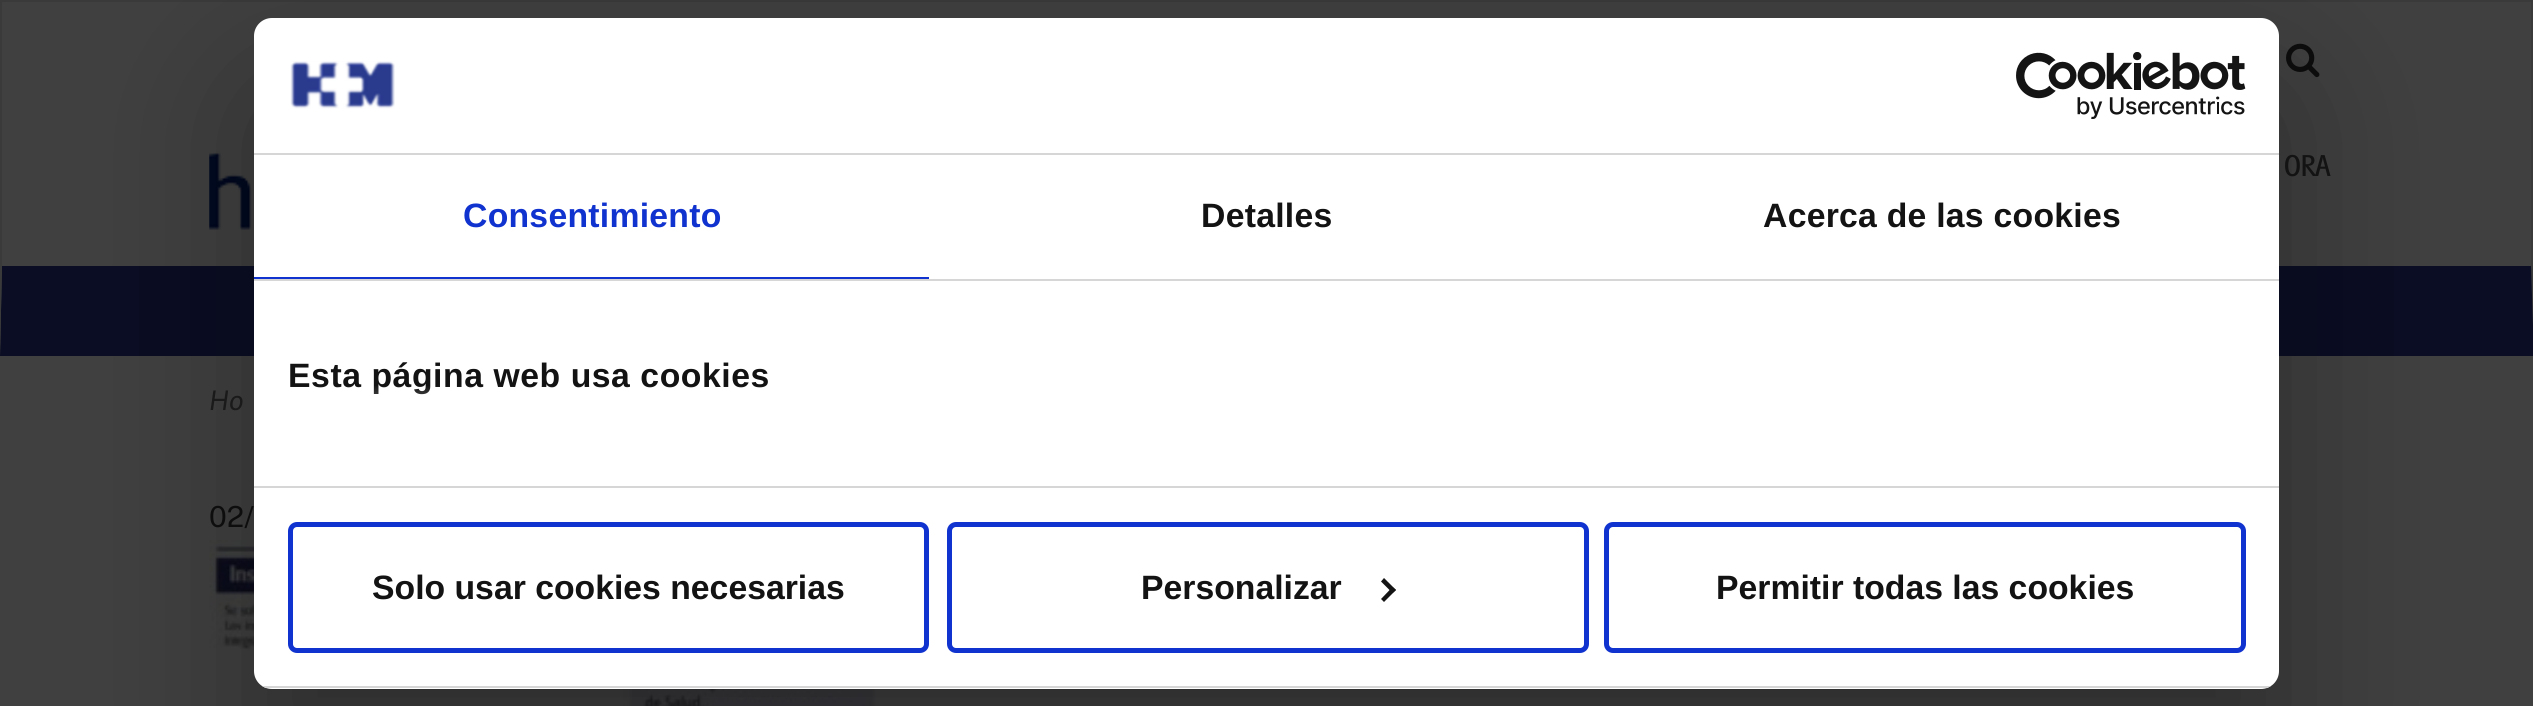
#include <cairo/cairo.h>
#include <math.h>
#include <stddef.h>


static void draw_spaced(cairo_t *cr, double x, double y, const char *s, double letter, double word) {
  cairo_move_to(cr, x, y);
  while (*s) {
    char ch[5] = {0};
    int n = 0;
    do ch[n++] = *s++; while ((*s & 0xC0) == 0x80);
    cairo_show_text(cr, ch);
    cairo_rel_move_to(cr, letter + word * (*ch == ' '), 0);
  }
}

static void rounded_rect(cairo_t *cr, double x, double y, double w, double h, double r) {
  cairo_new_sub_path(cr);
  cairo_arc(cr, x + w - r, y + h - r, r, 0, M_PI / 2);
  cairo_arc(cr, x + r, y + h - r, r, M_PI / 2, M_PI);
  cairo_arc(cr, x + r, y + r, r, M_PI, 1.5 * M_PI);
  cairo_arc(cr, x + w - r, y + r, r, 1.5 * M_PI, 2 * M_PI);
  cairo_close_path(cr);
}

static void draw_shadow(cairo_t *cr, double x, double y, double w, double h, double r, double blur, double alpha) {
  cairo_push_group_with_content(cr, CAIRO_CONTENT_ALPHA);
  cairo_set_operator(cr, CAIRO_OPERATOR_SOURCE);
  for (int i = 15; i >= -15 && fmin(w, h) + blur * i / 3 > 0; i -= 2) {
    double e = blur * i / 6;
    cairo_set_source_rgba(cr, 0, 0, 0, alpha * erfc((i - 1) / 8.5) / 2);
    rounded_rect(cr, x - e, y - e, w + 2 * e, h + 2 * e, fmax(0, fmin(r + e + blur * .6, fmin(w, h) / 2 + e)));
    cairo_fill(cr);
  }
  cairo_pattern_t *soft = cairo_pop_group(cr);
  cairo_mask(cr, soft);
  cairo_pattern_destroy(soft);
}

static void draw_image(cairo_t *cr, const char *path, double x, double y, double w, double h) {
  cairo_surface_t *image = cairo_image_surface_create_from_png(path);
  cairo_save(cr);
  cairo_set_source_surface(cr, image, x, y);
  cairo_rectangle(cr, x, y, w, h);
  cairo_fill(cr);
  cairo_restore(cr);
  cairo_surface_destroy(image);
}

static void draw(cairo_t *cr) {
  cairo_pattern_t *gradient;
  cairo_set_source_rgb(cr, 64 / 255.0, 64 / 255.0, 64 / 255.0);
  cairo_paint(cr);
  cairo_set_source_rgb(cr, 58 / 255.0, 58 / 255.0, 58 / 255.0);
  cairo_rectangle(cr, 0, 0, 2533, 2);
  cairo_fill(cr);
  cairo_new_path(cr);
  cairo_move_to(cr, 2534, 0);
  cairo_line_to(cr, 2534, 356);
  cairo_line_to(cr, 2531, 266);
  cairo_line_to(cr, 2531, 2);
  cairo_close_path(cr);
  cairo_fill(cr);
  cairo_set_source_rgb(cr, 10 / 255.0, 13 / 255.0, 35 / 255.0);
  cairo_new_path(cr);
  cairo_move_to(cr, 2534, 356);
  cairo_line_to(cr, 0, 356);
  cairo_line_to(cr, 2, 266);
  cairo_line_to(cr, 2531, 266);
  cairo_close_path(cr);
  cairo_fill(cr);
  cairo_set_source_rgb(cr, 58 / 255.0, 58 / 255.0, 58 / 255.0);
  cairo_new_path(cr);
  cairo_move_to(cr, 0, 356);
  cairo_line_to(cr, 0, 0);
  cairo_line_to(cr, 2, 2);
  cairo_line_to(cr, 2, 266);
  cairo_close_path(cr);
  cairo_fill(cr);
  draw_image(cr, "images/1.png", 2286, 43, 34, 35);
  draw_image(cr, "images/2.png", 209, 151, 44, 79);
  draw_image(cr, "images/3.png", 209, 540, 675, 166);
  cairo_set_source_rgb(cr, 0, 0, 0);
  draw_shadow(cr, 254, 90, 2025, 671, 18, 76.5, 0.3);
  cairo_select_font_face(cr, "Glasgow", CAIRO_FONT_SLANT_NORMAL, CAIRO_FONT_WEIGHT_NORMAL);
  cairo_set_font_size(cr, 29);
  cairo_set_source_rgb(cr, 19 / 255.0, 19 / 255.0, 19 / 255.0);
  cairo_move_to(cr, 2284, 176);
  cairo_show_text(cr, "ORA");
  cairo_select_font_face(cr, "Public Sans", CAIRO_FONT_SLANT_ITALIC, CAIRO_FONT_WEIGHT_NORMAL);
  cairo_set_font_size(cr, 27);
  cairo_set_source_rgb(cr, 26 / 255.0, 26 / 255.0, 26 / 255.0);
  cairo_move_to(cr, 209, 410);
  cairo_show_text(cr, "Ho");
  cairo_select_font_face(cr, "Public Sans", CAIRO_FONT_SLANT_NORMAL, CAIRO_FONT_WEIGHT_NORMAL);
  cairo_set_font_size(cr, 29);
  cairo_set_source_rgb(cr, 13 / 255.0, 13 / 255.0, 13 / 255.0);
  cairo_move_to(cr, 209, 527);
  cairo_show_text(cr, "02/");
  cairo_set_source_rgb(cr, 1, 1, 1);
  rounded_rect(cr, 254, 18, 2025, 671, 18);
  cairo_fill(cr);
  cairo_set_source_rgb(cr, 214 / 255.0, 214 / 255.0, 214 / 255.0);
  cairo_rectangle(cr, 254, 153, 2025, 2);
  cairo_fill(cr);
  draw_image(cr, "images/4.png", 290, 61, 105, 48);
  draw_image(cr, "images/5.png", 2016, 52, 230, 67);
  cairo_rectangle(cr, 254, 279, 2025, 2);
  cairo_fill(cr);
  cairo_set_source_rgb(cr, 16 / 255.0, 50 / 255.0, 207 / 255.0);
  cairo_rectangle(cr, 254, 277, 675, 2);
  cairo_fill(cr);
  cairo_select_font_face(cr, "Liberation Sans", CAIRO_FONT_SLANT_NORMAL, CAIRO_FONT_WEIGHT_BOLD);
  cairo_set_font_size(cr, 33.75);
  draw_spaced(cr, 463, 227, "Consentimiento", 0.25, 0);
  cairo_set_source_rgb(cr, 19 / 255.0, 19 / 255.0, 19 / 255.0);
  draw_spaced(cr, 1201, 227, "Detalles", 0.25, 0);
  draw_spaced(cr, 1763, 227, "Acerca de las cookies", 0.25, 0);
  cairo_set_source_rgb(cr, 214 / 255.0, 214 / 255.0, 214 / 255.0);
  cairo_rectangle(cr, 254, 486, 2025, 2);
  cairo_fill(cr);
  cairo_set_source_rgb(cr, 19 / 255.0, 19 / 255.0, 19 / 255.0);
  draw_spaced(cr, 288, 387, "Esta página web usa cookies", 0.55, 0);
  gradient = cairo_pattern_create_linear(1252, 486, 1252, 385);
  cairo_pattern_add_color_stop_rgba(gradient, 0, 1, 1, 1, 1);
  cairo_pattern_add_color_stop_rgba(gradient, 0.5, 1, 1, 1, 0.8);
  cairo_pattern_add_color_stop_rgba(gradient, 1, 1, 1, 1, 0);
  cairo_set_source(cr, gradient);
  cairo_pattern_destroy(gradient);
  cairo_rectangle(cr, 290, 386, 475, 9);
  cairo_fill(cr);
  cairo_save(cr);
  rounded_rect(cr, 254, 18, 2025, 671, 18);
  cairo_clip(cr);
  cairo_set_source_rgb(cr, 214 / 255.0, 214 / 255.0, 214 / 255.0);
  cairo_rectangle(cr, 254, 686, 2025, 2);
  cairo_fill(cr);
  cairo_restore(cr);
  rounded_rect(cr, 290.5, 524.5, 636, 126, 6.5);
  cairo_set_source_rgb(cr, 16 / 255.0, 50 / 255.0, 207 / 255.0);
  cairo_set_line_width(cr, 5);
  cairo_stroke(cr);
  cairo_set_source_rgb(cr, 19 / 255.0, 19 / 255.0, 19 / 255.0);
  cairo_move_to(cr, 372, 599);
  cairo_show_text(cr, "Solo usar cookies necesarias");
  rounded_rect(cr, 949.5, 524.5, 637, 126, 6.5);
  cairo_set_source_rgb(cr, 16 / 255.0, 50 / 255.0, 207 / 255.0);
  cairo_stroke(cr);
  cairo_set_source_rgb(cr, 19 / 255.0, 19 / 255.0, 19 / 255.0);
  cairo_move_to(cr, 1141, 599);
  cairo_show_text(cr, "Personalizar");
  cairo_set_source_rgb(cr, 20 / 255.0, 20 / 255.0, 20 / 255.0);
  cairo_new_path(cr);
  cairo_move_to(cr, 1384, 578);
  cairo_line_to(cr, 1396, 590);
  cairo_line_to(cr, 1392.5, 593);
  cairo_line_to(cr, 1381, 581.5);
  cairo_close_path(cr);
  cairo_fill(cr);
  cairo_new_path(cr);
  cairo_move_to(cr, 1392.5, 587);
  cairo_line_to(cr, 1396, 590);
  cairo_line_to(cr, 1384, 602);
  cairo_line_to(cr, 1381, 599);
  cairo_close_path(cr);
  cairo_fill(cr);
  rounded_rect(cr, 1606.5, 524.5, 637, 126, 6.5);
  cairo_set_source_rgb(cr, 16 / 255.0, 50 / 255.0, 207 / 255.0);
  cairo_stroke(cr);
  cairo_set_source_rgb(cr, 19 / 255.0, 19 / 255.0, 19 / 255.0);
  cairo_move_to(cr, 1716, 599);
  cairo_show_text(cr, "Permitir todas las cookies");
}

int main(void) {
  cairo_surface_t *surface = cairo_image_surface_create(CAIRO_FORMAT_RGB24, 2533, 706);
  cairo_t *cr = cairo_create(surface);
  cairo_font_options_t *options = cairo_font_options_create();
  cairo_font_options_set_hint_metrics(options, CAIRO_HINT_METRICS_OFF);
  cairo_font_options_set_hint_style(options, CAIRO_HINT_STYLE_NONE);
  cairo_set_font_options(cr, options);
  cairo_set_miter_limit(cr, 4);
  draw(cr);
  cairo_surface_write_to_png(surface, "out.png");
  cairo_font_options_destroy(options);
  cairo_destroy(cr);
  cairo_surface_destroy(surface);
  return 0;
}
